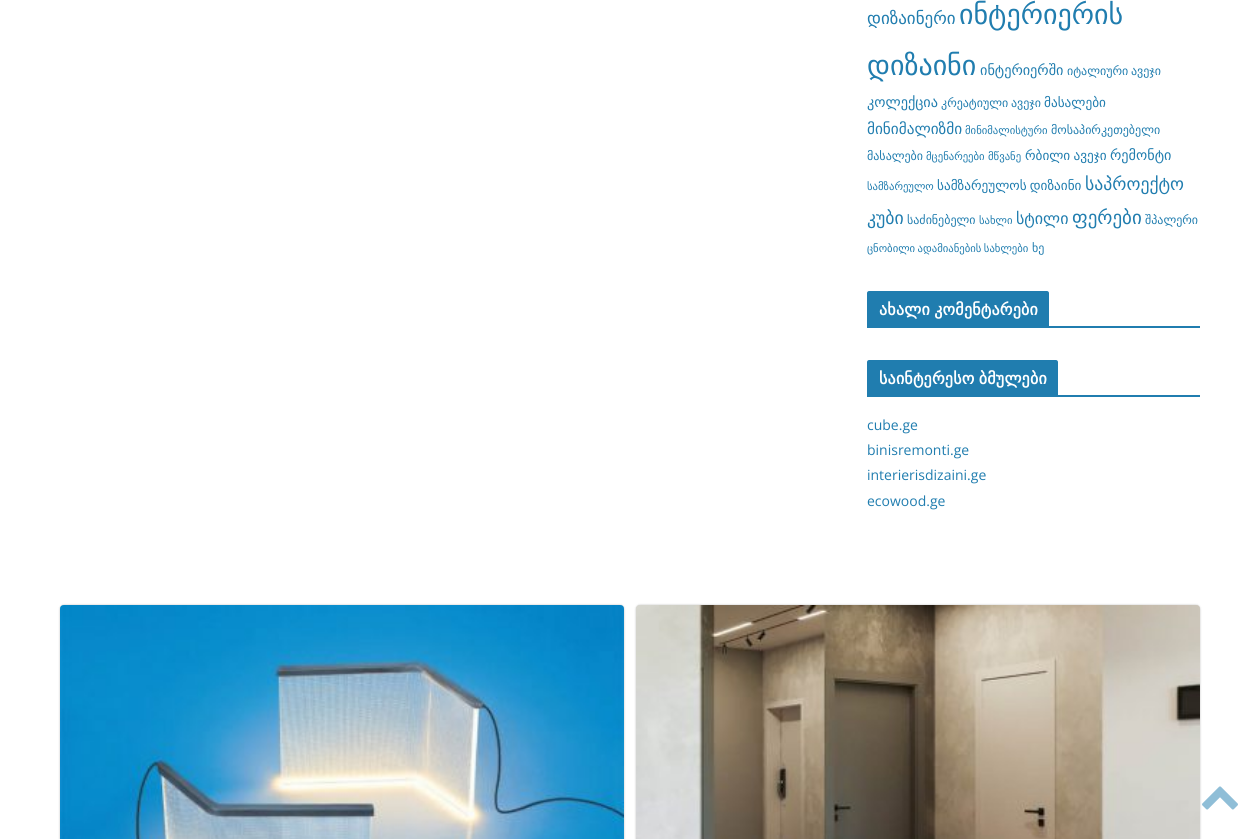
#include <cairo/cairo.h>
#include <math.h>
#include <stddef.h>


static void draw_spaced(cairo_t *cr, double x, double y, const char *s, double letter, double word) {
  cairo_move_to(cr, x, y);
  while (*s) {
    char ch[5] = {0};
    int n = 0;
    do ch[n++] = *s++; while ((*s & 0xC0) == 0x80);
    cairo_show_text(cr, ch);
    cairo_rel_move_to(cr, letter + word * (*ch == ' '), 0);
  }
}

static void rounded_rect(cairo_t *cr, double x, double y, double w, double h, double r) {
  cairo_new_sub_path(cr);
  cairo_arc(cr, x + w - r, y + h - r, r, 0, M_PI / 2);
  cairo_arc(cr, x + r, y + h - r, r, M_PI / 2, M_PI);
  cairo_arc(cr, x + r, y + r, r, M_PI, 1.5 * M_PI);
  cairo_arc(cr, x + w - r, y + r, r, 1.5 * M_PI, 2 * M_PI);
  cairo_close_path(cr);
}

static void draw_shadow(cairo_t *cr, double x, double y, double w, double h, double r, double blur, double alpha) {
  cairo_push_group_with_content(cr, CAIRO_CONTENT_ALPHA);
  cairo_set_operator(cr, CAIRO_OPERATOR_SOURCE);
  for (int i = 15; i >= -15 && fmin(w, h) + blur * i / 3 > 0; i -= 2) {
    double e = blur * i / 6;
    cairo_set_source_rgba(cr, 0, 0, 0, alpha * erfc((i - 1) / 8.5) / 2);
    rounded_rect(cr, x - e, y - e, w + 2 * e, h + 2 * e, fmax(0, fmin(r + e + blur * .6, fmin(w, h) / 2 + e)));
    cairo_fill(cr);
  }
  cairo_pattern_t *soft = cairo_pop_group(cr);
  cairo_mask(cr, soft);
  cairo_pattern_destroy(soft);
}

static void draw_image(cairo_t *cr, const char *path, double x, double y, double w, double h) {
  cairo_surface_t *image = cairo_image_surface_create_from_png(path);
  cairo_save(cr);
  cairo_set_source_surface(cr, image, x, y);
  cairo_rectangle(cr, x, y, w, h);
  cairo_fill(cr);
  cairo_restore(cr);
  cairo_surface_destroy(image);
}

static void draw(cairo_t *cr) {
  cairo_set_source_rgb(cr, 1, 1, 1);
  cairo_paint(cr);
  cairo_set_source_rgb(cr, 32 / 255.0, 125 / 255.0, 175 / 255.0);
  cairo_rectangle(cr, 867, 326, 333, 2);
  cairo_fill(cr);
  cairo_new_path(cr);
  cairo_move_to(cr, 869, 291);
  cairo_line_to(cr, 1047, 291);
  cairo_curve_to(cr, 1048, 291, 1049, 292, 1049, 293);
  cairo_line_to(cr, 1049, 326);
  cairo_line_to(cr, 867, 326);
  cairo_line_to(cr, 867, 293);
  cairo_curve_to(cr, 867, 292, 868, 291, 869, 291);
  cairo_close_path(cr);
  cairo_fill(cr);
  cairo_rectangle(cr, 867, 395, 333, 2);
  cairo_fill(cr);
  cairo_new_path(cr);
  cairo_move_to(cr, 869, 360);
  cairo_line_to(cr, 1056, 360);
  cairo_curve_to(cr, 1057, 360, 1058, 361, 1058, 362);
  cairo_line_to(cr, 1058, 395);
  cairo_line_to(cr, 867, 395);
  cairo_line_to(cr, 867, 362);
  cairo_curve_to(cr, 867, 361, 868, 360, 869, 360);
  cairo_close_path(cr);
  cairo_fill(cr);
  cairo_set_source_rgb(cr, 0, 0, 0);
  draw_shadow(cr, 60, 605, 564, 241, 4, 1, 0.24);
  draw_image(cr, "images/1.png", 60, 605, 564, 234);
  draw_shadow(cr, 636, 605, 564, 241, 4, 1, 0.24);
  draw_image(cr, "images/2.png", 636, 605, 564, 234);
  draw_image(cr, "images/3.png", 1202, 786, 36, 24);
  cairo_select_font_face(cr, "DejaVu Sans", CAIRO_FONT_SLANT_NORMAL, CAIRO_FONT_WEIGHT_NORMAL);
  cairo_set_font_size(cr, 17);
  cairo_set_source_rgb(cr, 32 / 255.0, 125 / 255.0, 175 / 255.0);
  cairo_move_to(cr, 867, 24);
  cairo_show_text(cr, "დიზაინერი");
  cairo_set_font_size(cr, 28);
  cairo_move_to(cr, 959, 24);
  cairo_show_text(cr, "ინტერიერის");
  cairo_move_to(cr, 867, 75);
  cairo_show_text(cr, "დიზაინი");
  cairo_set_font_size(cr, 14.25);
  cairo_move_to(cr, 980, 75);
  cairo_show_text(cr, "ინტერიერში");
  cairo_set_font_size(cr, 12);
  draw_spaced(cr, 1067, 75, "იტალიური ავეჯი", 0, -1);
  cairo_set_font_size(cr, 14.25);
  cairo_move_to(cr, 867, 107);
  cairo_show_text(cr, "კოლექცია");
  cairo_set_font_size(cr, 12);
  draw_spaced(cr, 941, 107, "კრეატიული ავეჯი", 0, -1);
  cairo_set_font_size(cr, 13.25);
  cairo_move_to(cr, 1044, 107);
  cairo_show_text(cr, "მასალები");
  cairo_set_font_size(cr, 15.25);
  cairo_move_to(cr, 867, 134);
  cairo_show_text(cr, "მინიმალიზმი");
  cairo_set_font_size(cr, 10.7);
  cairo_move_to(cr, 965, 134);
  cairo_show_text(cr, "მინიმალისტური");
  cairo_set_font_size(cr, 12);
  cairo_move_to(cr, 1051, 134);
  cairo_show_text(cr, "მოსაპირკეთებელი");
  cairo_move_to(cr, 867, 160);
  cairo_show_text(cr, "მასალები");
  cairo_set_font_size(cr, 10.7);
  cairo_move_to(cr, 926, 160);
  cairo_show_text(cr, "მცენარეები მწვანე");
  cairo_set_font_size(cr, 13.25);
  draw_spaced(cr, 1025, 160, "რბილი ავეჯი", 0, -1);
  cairo_set_font_size(cr, 14.25);
  cairo_move_to(cr, 1110, 160);
  cairo_show_text(cr, "რემონტი");
  cairo_set_font_size(cr, 10.7);
  cairo_move_to(cr, 867, 190);
  cairo_show_text(cr, "სამზარეულო");
  cairo_set_font_size(cr, 13.25);
  draw_spaced(cr, 937, 190, "სამზარეულოს დიზაინი", 0, -1);
  cairo_set_font_size(cr, 17.75);
  cairo_move_to(cr, 1085, 190);
  cairo_show_text(cr, "საპროექტო");
  cairo_move_to(cr, 867, 224);
  cairo_show_text(cr, "კუბი");
  cairo_set_font_size(cr, 12);
  cairo_move_to(cr, 907, 224);
  cairo_show_text(cr, "საძინებელი");
  cairo_set_font_size(cr, 10.7);
  cairo_move_to(cr, 979, 224);
  cairo_show_text(cr, "სახლი");
  cairo_set_font_size(cr, 16);
  cairo_move_to(cr, 1016, 224);
  cairo_show_text(cr, "სტილი");
  cairo_set_font_size(cr, 19);
  cairo_move_to(cr, 1072, 224);
  cairo_show_text(cr, "ფერები");
  cairo_set_font_size(cr, 12);
  cairo_move_to(cr, 1145, 224);
  cairo_show_text(cr, "შპალერი");
  cairo_set_font_size(cr, 10.7);
  draw_spaced(cr, 867, 252, "ცნობილი ადამიანების სახლები", 0, -1);
  cairo_set_font_size(cr, 12);
  cairo_move_to(cr, 1032, 252);
  cairo_show_text(cr, "ხე");
  cairo_select_font_face(cr, "DejaVu Sans", CAIRO_FONT_SLANT_NORMAL, CAIRO_FONT_WEIGHT_BOLD);
  cairo_set_font_size(cr, 16);
  cairo_set_source_rgb(cr, 1, 1, 1);
  draw_spaced(cr, 879, 315, "ახალი კომენტარები", 0.2, -1);
  draw_spaced(cr, 879, 384, "საინტერესო ბმულები", 0.2, -1);
  cairo_select_font_face(cr, "Open Sans", CAIRO_FONT_SLANT_NORMAL, CAIRO_FONT_WEIGHT_NORMAL);
  cairo_set_font_size(cr, 14);
  cairo_set_source_rgb(cr, 32 / 255.0, 125 / 255.0, 175 / 255.0);
  cairo_move_to(cr, 867, 430);
  cairo_show_text(cr, "cube.ge");
  cairo_move_to(cr, 867, 455);
  cairo_show_text(cr, "binisremonti.ge");
  cairo_move_to(cr, 867, 480);
  cairo_show_text(cr, "interierisdizaini.ge");
  cairo_move_to(cr, 867, 506);
  cairo_show_text(cr, "ecowood.ge");
}

int main(void) {
  cairo_surface_t *surface = cairo_image_surface_create(CAIRO_FORMAT_RGB24, 1260, 839);
  cairo_t *cr = cairo_create(surface);
  cairo_font_options_t *options = cairo_font_options_create();
  cairo_font_options_set_hint_metrics(options, CAIRO_HINT_METRICS_OFF);
  cairo_font_options_set_hint_style(options, CAIRO_HINT_STYLE_NONE);
  cairo_set_font_options(cr, options);
  cairo_set_miter_limit(cr, 4);
  draw(cr);
  cairo_surface_write_to_png(surface, "out.png");
  cairo_font_options_destroy(options);
  cairo_destroy(cr);
  cairo_surface_destroy(surface);
  return 0;
}
